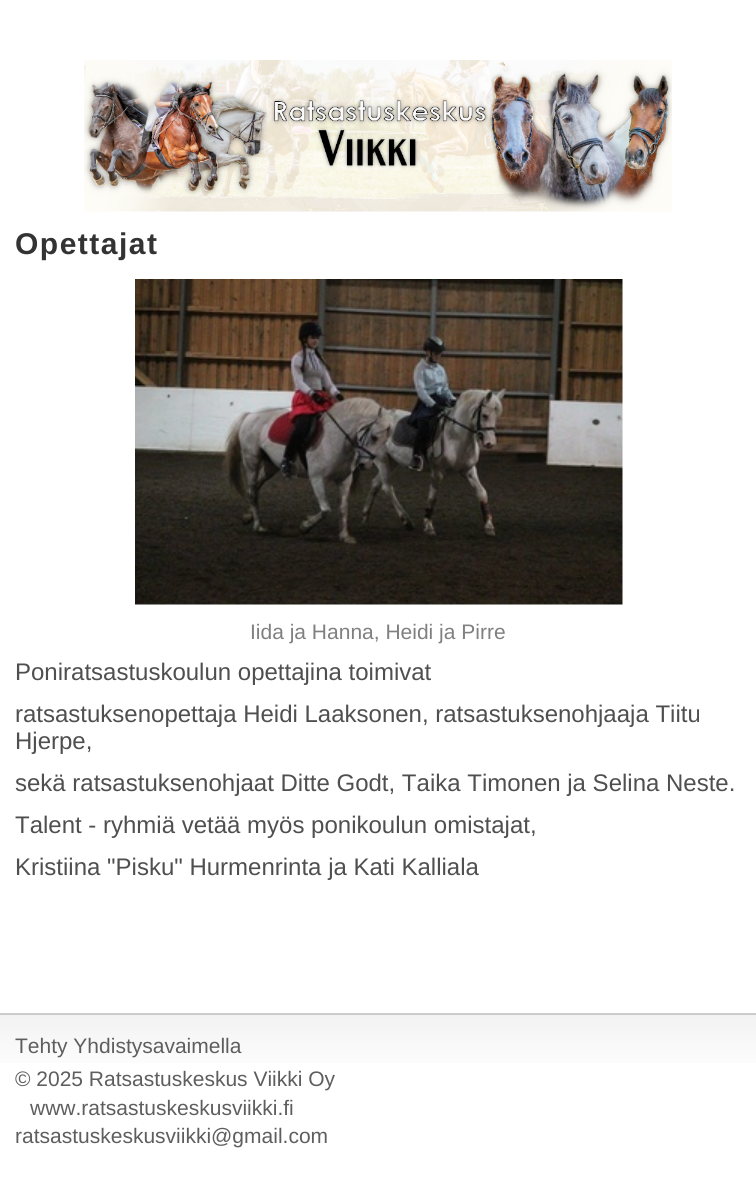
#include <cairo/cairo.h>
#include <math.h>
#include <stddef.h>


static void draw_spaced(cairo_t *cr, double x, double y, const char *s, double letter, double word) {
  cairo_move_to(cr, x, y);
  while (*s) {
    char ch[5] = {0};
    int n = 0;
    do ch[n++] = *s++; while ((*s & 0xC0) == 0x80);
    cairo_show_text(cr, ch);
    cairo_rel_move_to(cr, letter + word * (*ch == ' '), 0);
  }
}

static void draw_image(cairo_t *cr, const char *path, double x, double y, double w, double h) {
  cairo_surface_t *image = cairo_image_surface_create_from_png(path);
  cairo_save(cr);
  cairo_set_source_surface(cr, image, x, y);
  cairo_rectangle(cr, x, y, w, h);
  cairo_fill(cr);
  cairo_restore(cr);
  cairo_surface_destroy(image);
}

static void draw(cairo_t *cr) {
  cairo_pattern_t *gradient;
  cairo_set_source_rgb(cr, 1, 1, 1);
  cairo_paint(cr);
  draw_image(cr, "images/1.png", 84, 60, 588, 152);
  draw_image(cr, "images/2.png", 135, 279, 488, 326);
  gradient = cairo_pattern_create_linear(378, 1014, 378, 1167);
  cairo_pattern_add_color_stop_rgba(gradient, 0, 242 / 255.0, 242 / 255.0, 242 / 255.0, 1);
  cairo_pattern_add_color_stop_rgba(gradient, 0.4, 1, 1, 1, 1);
  cairo_pattern_add_color_stop_rgba(gradient, 1, 1, 1, 1, 1);
  cairo_set_source(cr, gradient);
  cairo_pattern_destroy(gradient);
  cairo_rectangle(cr, 0, 1015, 756, 48);
  cairo_fill(cr);
  cairo_set_source_rgb(cr, 204 / 255.0, 204 / 255.0, 204 / 255.0);
  cairo_rectangle(cr, 0, 1013, 756, 2);
  cairo_fill(cr);
  cairo_select_font_face(cr, "Liberation Sans", CAIRO_FONT_SLANT_NORMAL, CAIRO_FONT_WEIGHT_BOLD);
  cairo_set_font_size(cr, 30);
  cairo_set_source_rgb(cr, 51 / 255.0, 51 / 255.0, 51 / 255.0);
  draw_spaced(cr, 15, 254, "Opettajat", 1.5, 0);
  cairo_select_font_face(cr, "Liberation Sans", CAIRO_FONT_SLANT_NORMAL, CAIRO_FONT_WEIGHT_NORMAL);
  cairo_set_font_size(cr, 21);
  cairo_set_source_rgb(cr, 128 / 255.0, 128 / 255.0, 128 / 255.0);
  cairo_move_to(cr, 250, 639);
  cairo_show_text(cr, "Iida ja Hanna, Heidi ja Pirre");
  cairo_set_font_size(cr, 24);
  cairo_set_source_rgb(cr, 79 / 255.0, 79 / 255.0, 79 / 255.0);
  cairo_move_to(cr, 15, 680);
  cairo_show_text(cr, "Poniratsastuskoulun opettajina toimivat");
  cairo_move_to(cr, 15, 722);
  cairo_show_text(cr, "ratsastuksenopettaja Heidi Laaksonen, ratsastuksenohjaaja Tiitu");
  cairo_move_to(cr, 15, 749);
  cairo_show_text(cr, "Hjerpe,");
  cairo_move_to(cr, 15, 791);
  cairo_show_text(cr, "sekä ratsastuksenohjaat Ditte Godt, Taika Timonen ja Selina Neste.");
  cairo_move_to(cr, 15, 833);
  cairo_show_text(cr, "Talent - ryhmiä vetää myös ponikoulun omistajat,");
  cairo_move_to(cr, 15, 875);
  cairo_show_text(cr, "Kristiina \"Pisku\" Hurmenrinta ja Kati Kalliala");
  cairo_set_font_size(cr, 21);
  cairo_set_source_rgb(cr, 94 / 255.0, 94 / 255.0, 94 / 255.0);
  cairo_move_to(cr, 15, 1053);
  cairo_show_text(cr, "Tehty Yhdistysavaimella");
  cairo_move_to(cr, 15, 1086);
  cairo_show_text(cr, "© 2025 Ratsastuskeskus Viikki Oy");
  cairo_move_to(cr, 30, 1115);
  cairo_show_text(cr, "www.ratsastuskeskusviikki.fi");
  cairo_move_to(cr, 15, 1143);
  cairo_show_text(cr, "ratsastuskeskusviikki@gmail.com");
}

int main(void) {
  cairo_surface_t *surface = cairo_image_surface_create(CAIRO_FORMAT_RGB24, 756, 1202);
  cairo_t *cr = cairo_create(surface);
  cairo_font_options_t *options = cairo_font_options_create();
  cairo_font_options_set_hint_metrics(options, CAIRO_HINT_METRICS_OFF);
  cairo_font_options_set_hint_style(options, CAIRO_HINT_STYLE_NONE);
  cairo_set_font_options(cr, options);
  cairo_set_miter_limit(cr, 4);
  draw(cr);
  cairo_surface_write_to_png(surface, "out.png");
  cairo_font_options_destroy(options);
  cairo_destroy(cr);
  cairo_surface_destroy(surface);
  return 0;
}
